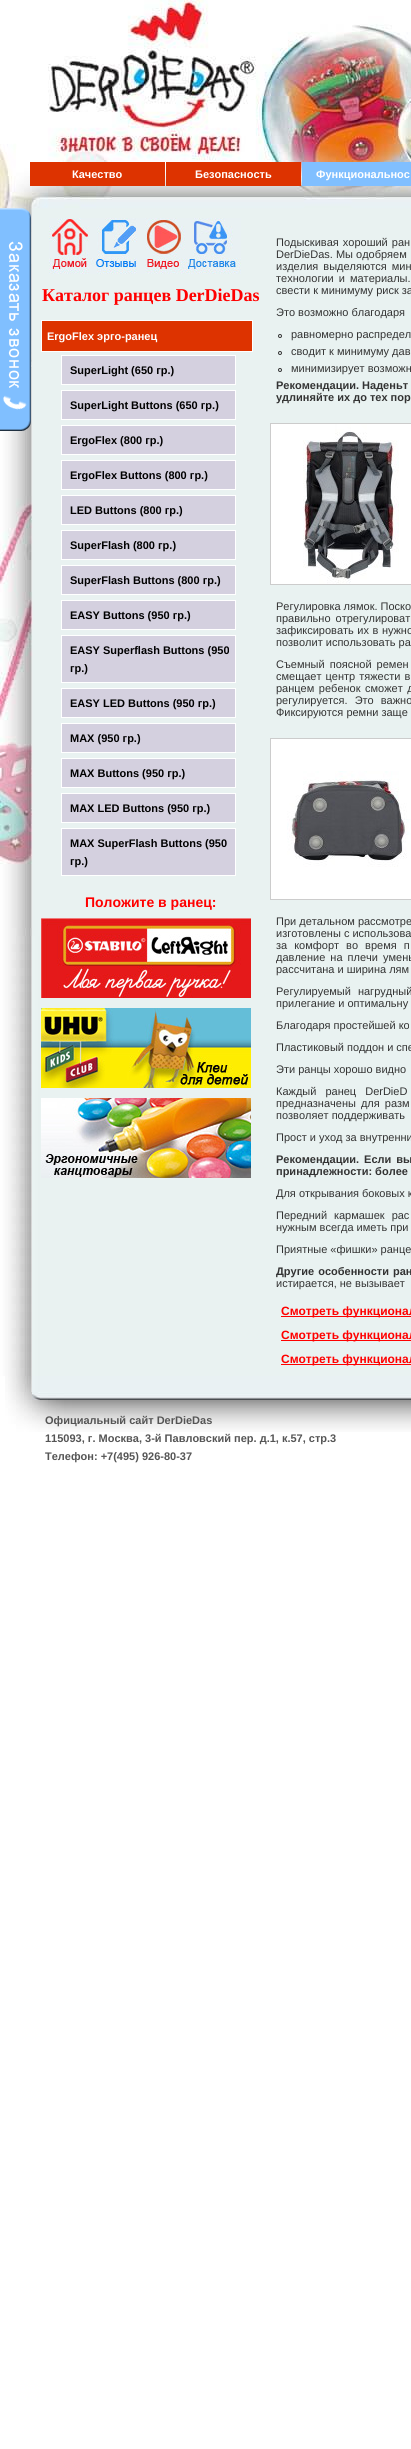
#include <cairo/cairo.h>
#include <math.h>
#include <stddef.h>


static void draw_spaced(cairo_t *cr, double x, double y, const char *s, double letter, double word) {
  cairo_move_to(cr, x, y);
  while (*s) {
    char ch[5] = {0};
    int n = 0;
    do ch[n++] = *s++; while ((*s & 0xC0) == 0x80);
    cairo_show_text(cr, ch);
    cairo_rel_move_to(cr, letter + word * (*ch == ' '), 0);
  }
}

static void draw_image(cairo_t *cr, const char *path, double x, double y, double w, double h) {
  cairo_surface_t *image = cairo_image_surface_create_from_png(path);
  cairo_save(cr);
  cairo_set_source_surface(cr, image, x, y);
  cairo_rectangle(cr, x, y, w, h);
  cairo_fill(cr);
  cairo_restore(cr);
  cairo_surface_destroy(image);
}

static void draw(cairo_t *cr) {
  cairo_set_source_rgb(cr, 1, 1, 1);
  cairo_paint(cr);
  draw_image(cr, "images/3.png", 0, 0, 411, 936);
  draw_image(cr, "images/1.png", 0, 208, 31, 223);
  draw_image(cr, "images/2.png", 0, 936, 411, 440);
  cairo_set_source_rgb(cr, 221 / 255.0, 51 / 255.0, 0);
  cairo_rectangle(cr, 30, 162, 135, 24);
  cairo_fill(cr);
  cairo_rectangle(cr, 166, 162, 135, 24);
  cairo_fill(cr);
  cairo_set_source_rgb(cr, 128 / 255.0, 191 / 255.0, 1);
  cairo_rectangle(cr, 302, 162, 109, 24);
  cairo_fill(cr);
  draw_image(cr, "images/4.png", 49, 218, 192, 56);
  cairo_set_source_rgb(cr, 221 / 255.0, 51 / 255.0, 0);
  cairo_rectangle(cr, 41.5, 320.5, 211, 31);
  cairo_fill_preserve(cr);
  cairo_set_source_rgb(cr, 1, 1, 1);
  cairo_set_line_width(cr, 1);
  cairo_stroke(cr);
  cairo_set_source_rgb(cr, 212 / 255.0, 208 / 255.0, 223 / 255.0);
  cairo_rectangle(cr, 61.5, 355.5, 174, 29);
  cairo_fill_preserve(cr);
  cairo_set_source_rgb(cr, 1, 1, 1);
  cairo_stroke(cr);
  cairo_set_source_rgb(cr, 212 / 255.0, 208 / 255.0, 223 / 255.0);
  cairo_rectangle(cr, 61.5, 390.5, 174, 29);
  cairo_fill_preserve(cr);
  cairo_set_source_rgb(cr, 1, 1, 1);
  cairo_stroke(cr);
  cairo_set_source_rgb(cr, 212 / 255.0, 208 / 255.0, 223 / 255.0);
  cairo_rectangle(cr, 61.5, 425.5, 174, 29);
  cairo_fill_preserve(cr);
  cairo_set_source_rgb(cr, 1, 1, 1);
  cairo_stroke(cr);
  cairo_set_source_rgb(cr, 212 / 255.0, 208 / 255.0, 223 / 255.0);
  cairo_rectangle(cr, 61.5, 460.5, 174, 29);
  cairo_fill_preserve(cr);
  cairo_set_source_rgb(cr, 1, 1, 1);
  cairo_stroke(cr);
  cairo_set_source_rgb(cr, 212 / 255.0, 208 / 255.0, 223 / 255.0);
  cairo_rectangle(cr, 61.5, 495.5, 174, 29);
  cairo_fill_preserve(cr);
  cairo_set_source_rgb(cr, 1, 1, 1);
  cairo_stroke(cr);
  cairo_set_source_rgb(cr, 212 / 255.0, 208 / 255.0, 223 / 255.0);
  cairo_rectangle(cr, 61.5, 530.5, 174, 29);
  cairo_fill_preserve(cr);
  cairo_set_source_rgb(cr, 1, 1, 1);
  cairo_stroke(cr);
  cairo_set_source_rgb(cr, 212 / 255.0, 208 / 255.0, 223 / 255.0);
  cairo_rectangle(cr, 61.5, 565.5, 174, 29);
  cairo_fill_preserve(cr);
  cairo_set_source_rgb(cr, 1, 1, 1);
  cairo_stroke(cr);
  cairo_set_source_rgb(cr, 212 / 255.0, 208 / 255.0, 223 / 255.0);
  cairo_rectangle(cr, 61.5, 600.5, 174, 29);
  cairo_fill_preserve(cr);
  cairo_set_source_rgb(cr, 1, 1, 1);
  cairo_stroke(cr);
  cairo_set_source_rgb(cr, 212 / 255.0, 208 / 255.0, 223 / 255.0);
  cairo_rectangle(cr, 61.5, 635.5, 174, 47);
  cairo_fill_preserve(cr);
  cairo_set_source_rgb(cr, 1, 1, 1);
  cairo_stroke(cr);
  cairo_set_source_rgb(cr, 212 / 255.0, 208 / 255.0, 223 / 255.0);
  cairo_rectangle(cr, 61.5, 688.5, 174, 29);
  cairo_fill_preserve(cr);
  cairo_set_source_rgb(cr, 1, 1, 1);
  cairo_stroke(cr);
  cairo_set_source_rgb(cr, 212 / 255.0, 208 / 255.0, 223 / 255.0);
  cairo_rectangle(cr, 61.5, 723.5, 174, 29);
  cairo_fill_preserve(cr);
  cairo_set_source_rgb(cr, 1, 1, 1);
  cairo_stroke(cr);
  cairo_set_source_rgb(cr, 212 / 255.0, 208 / 255.0, 223 / 255.0);
  cairo_rectangle(cr, 61.5, 758.5, 174, 29);
  cairo_fill_preserve(cr);
  cairo_set_source_rgb(cr, 1, 1, 1);
  cairo_stroke(cr);
  cairo_set_source_rgb(cr, 212 / 255.0, 208 / 255.0, 223 / 255.0);
  cairo_rectangle(cr, 61.5, 793.5, 174, 29);
  cairo_fill_preserve(cr);
  cairo_set_source_rgb(cr, 1, 1, 1);
  cairo_stroke(cr);
  cairo_set_source_rgb(cr, 212 / 255.0, 208 / 255.0, 223 / 255.0);
  cairo_rectangle(cr, 61.5, 828.5, 174, 47);
  cairo_fill_preserve(cr);
  cairo_set_source_rgb(cr, 1, 1, 1);
  cairo_stroke(cr);
  draw_image(cr, "images/5.png", 41, 918, 210, 80);
  draw_image(cr, "images/6.png", 41, 1008, 210, 80);
  draw_image(cr, "images/7.png", 41, 1098, 210, 80);
  cairo_arc(cr, 280, 336, 1.5, 0, 2 * M_PI);
  cairo_set_source_rgb(cr, 51 / 255.0, 51 / 255.0, 51 / 255.0);
  cairo_stroke(cr);
  cairo_arc(cr, 280, 353, 1.5, 0, 2 * M_PI);
  cairo_stroke(cr);
  cairo_arc(cr, 280, 370, 1.5, 0, 2 * M_PI);
  cairo_stroke(cr);
  cairo_rectangle(cr, 270.5, 423.5, 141, 161);
  cairo_set_source_rgb(cr, 204 / 255.0, 204 / 255.0, 204 / 255.0);
  cairo_stroke(cr);
  draw_image(cr, "images/8.png", 271, 424, 140, 160);
  cairo_rectangle(cr, 270.5, 738.5, 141, 161);
  cairo_stroke(cr);
  draw_image(cr, "images/9.png", 271, 739, 140, 160);
  cairo_set_source_rgb(cr, 1, 0, 0);
  cairo_rectangle(cr, 281, 1316, 130, 1);
  cairo_fill(cr);
  cairo_rectangle(cr, 281, 1340, 130, 1);
  cairo_fill(cr);
  cairo_rectangle(cr, 281, 1364, 130, 1);
  cairo_fill(cr);
  draw_image(cr, "images/10.png", 5, 1376, 406, 56);
  cairo_select_font_face(cr, "Liberation Sans", CAIRO_FONT_SLANT_NORMAL, CAIRO_FONT_WEIGHT_BOLD);
  cairo_set_font_size(cr, 11);
  cairo_set_source_rgb(cr, 1, 1, 1);
  cairo_move_to(cr, 72, 178);
  cairo_show_text(cr, "Качество");
  cairo_move_to(cr, 195, 178);
  cairo_show_text(cr, "Безопасность");
  cairo_move_to(cr, 316, 178);
  cairo_show_text(cr, "Функциональнос");
  cairo_select_font_face(cr, "Liberation Serif", CAIRO_FONT_SLANT_NORMAL, CAIRO_FONT_WEIGHT_BOLD);
  cairo_set_font_size(cr, 18);
  cairo_set_source_rgb(cr, 1, 0, 0);
  cairo_move_to(cr, 42, 301);
  cairo_show_text(cr, "Каталог ранцев DerDieDas");
  cairo_select_font_face(cr, "Liberation Sans", CAIRO_FONT_SLANT_NORMAL, CAIRO_FONT_WEIGHT_BOLD);
  cairo_set_font_size(cr, 11);
  cairo_set_source_rgb(cr, 1, 1, 1);
  cairo_move_to(cr, 47, 340);
  cairo_show_text(cr, "ErgoFlex эрго-ранец");
  cairo_set_source_rgb(cr, 0, 0, 0);
  cairo_move_to(cr, 70, 374);
  cairo_show_text(cr, "SuperLight (650 гр.)");
  cairo_move_to(cr, 70, 409);
  cairo_show_text(cr, "SuperLight Buttons (650 гр.)");
  cairo_move_to(cr, 70, 444);
  cairo_show_text(cr, "ErgoFlex (800 гр.)");
  cairo_move_to(cr, 70, 479);
  cairo_show_text(cr, "ErgoFlex Buttons (800 гр.)");
  cairo_move_to(cr, 70, 514);
  cairo_show_text(cr, "LED Buttons (800 гр.)");
  cairo_move_to(cr, 70, 549);
  cairo_show_text(cr, "SuperFlash (800 гр.)");
  cairo_move_to(cr, 70, 584);
  cairo_show_text(cr, "SuperFlash Buttons (800 гр.)");
  cairo_move_to(cr, 70, 619);
  cairo_show_text(cr, "EASY Buttons (950 гр.)");
  cairo_move_to(cr, 70, 654);
  cairo_show_text(cr, "EASY Superflash Buttons (950");
  cairo_move_to(cr, 70, 672);
  cairo_show_text(cr, "гр.)");
  cairo_move_to(cr, 70, 707);
  cairo_show_text(cr, "EASY LED Buttons (950 гр.)");
  cairo_move_to(cr, 70, 742);
  cairo_show_text(cr, "MAX (950 гр.)");
  cairo_move_to(cr, 70, 777);
  cairo_show_text(cr, "MAX Buttons (950 гр.)");
  cairo_move_to(cr, 70, 812);
  cairo_show_text(cr, "MAX LED Buttons (950 гр.)");
  cairo_move_to(cr, 70, 847);
  cairo_show_text(cr, "MAX SuperFlash Buttons (950");
  cairo_move_to(cr, 70, 865);
  cairo_show_text(cr, "гр.)");
  cairo_set_font_size(cr, 14);
  cairo_set_source_rgb(cr, 1, 0, 0);
  cairo_move_to(cr, 85, 907);
  cairo_show_text(cr, "Положите в ранец:");
  cairo_select_font_face(cr, "Liberation Sans", CAIRO_FONT_SLANT_NORMAL, CAIRO_FONT_WEIGHT_NORMAL);
  cairo_set_font_size(cr, 11);
  cairo_set_source_rgb(cr, 51 / 255.0, 51 / 255.0, 51 / 255.0);
  draw_spaced(cr, 276, 246, "Подыскивая хороший ран", 0, 1);
  cairo_move_to(cr, 276, 258);
  cairo_show_text(cr, "DerDieDas. Мы одобряем");
  draw_spaced(cr, 276, 270, "изделия выделяются мин", 0, 2);
  draw_spaced(cr, 276, 282, "технологии и материалы.", 0, 2);
  cairo_move_to(cr, 276, 294);
  cairo_show_text(cr, "свести к минимуму риск за");
  cairo_move_to(cr, 276, 316);
  cairo_show_text(cr, "Это возможно благодаря");
  cairo_move_to(cr, 291, 338);
  cairo_show_text(cr, "равномерно распредел");
  cairo_move_to(cr, 291, 355);
  cairo_show_text(cr, "сводит к минимуму дав");
  cairo_move_to(cr, 291, 372);
  cairo_show_text(cr, "минимизирует возможн");
  cairo_select_font_face(cr, "Liberation Sans", CAIRO_FONT_SLANT_NORMAL, CAIRO_FONT_WEIGHT_BOLD);
  cairo_move_to(cr, 276, 389);
  cairo_show_text(cr, "Рекомендации. Наденьт");
  cairo_move_to(cr, 276, 401);
  cairo_show_text(cr, "удлиняйте их до тех пор");
  cairo_select_font_face(cr, "Liberation Sans", CAIRO_FONT_SLANT_NORMAL, CAIRO_FONT_WEIGHT_NORMAL);
  cairo_move_to(cr, 276, 610);
  cairo_show_text(cr, "Регулировка лямок. Поско");
  draw_spaced(cr, 276, 622, "правильно отрегулироват", 0, 2);
  draw_spaced(cr, 276, 634, "зафиксировать их в нужно", 0, 0.5);
  cairo_move_to(cr, 276, 646);
  cairo_show_text(cr, "позволит использовать ра");
  draw_spaced(cr, 276, 668, "Съемный поясной ремен", 0, 2);
  draw_spaced(cr, 276, 680, "смещает центр тяжести в", 0, 1);
  draw_spaced(cr, 276, 692, "ранцем ребенок сможет д", 0, 1.5);
  draw_spaced(cr, 276, 704, "регулируется. Это важно", 0, 4);
  cairo_move_to(cr, 276, 716);
  cairo_show_text(cr, "Фиксируются ремни заще");
  cairo_move_to(cr, 276, 925);
  cairo_show_text(cr, "При детальном рассмотре");
  cairo_move_to(cr, 276, 937);
  cairo_show_text(cr, "изготовлены с использова");
  draw_spaced(cr, 276, 949, "за комфорт во время п", 0, 4);
  draw_spaced(cr, 276, 961, "давление на плечи умень", 0, 2);
  cairo_move_to(cr, 276, 973);
  cairo_show_text(cr, "рассчитана и ширина лям");
  draw_spaced(cr, 276, 995, "Регулируемый нагрудный", 0, 4);
  cairo_move_to(cr, 276, 1007);
  cairo_show_text(cr, "прилегание и оптимальну");
  cairo_move_to(cr, 276, 1029);
  cairo_show_text(cr, "Благодаря простейшей ко");
  cairo_move_to(cr, 276, 1051);
  cairo_show_text(cr, "Пластиковый поддон и спе");
  cairo_move_to(cr, 276, 1073);
  cairo_show_text(cr, "Эти ранцы хорошо видно");
  draw_spaced(cr, 276, 1095, "Каждый ранец DerDieD", 0, 6);
  draw_spaced(cr, 276, 1107, "предназначены для разм", 0, 2);
  cairo_move_to(cr, 276, 1119);
  cairo_show_text(cr, "позволяет поддерживать");
  cairo_move_to(cr, 276, 1141);
  cairo_show_text(cr, "Прост и уход за внутренни");
  cairo_select_font_face(cr, "Liberation Sans", CAIRO_FONT_SLANT_NORMAL, CAIRO_FONT_WEIGHT_BOLD);
  draw_spaced(cr, 276, 1163, "Рекомендации. Если вы", 0, 2);
  cairo_move_to(cr, 276, 1175);
  cairo_show_text(cr, "принадлежности: более");
  cairo_select_font_face(cr, "Liberation Sans", CAIRO_FONT_SLANT_NORMAL, CAIRO_FONT_WEIGHT_NORMAL);
  cairo_move_to(cr, 276, 1197);
  cairo_show_text(cr, "Для открывания боковых к");
  draw_spaced(cr, 276, 1219, "Передний кармашек рас", 0, 4);
  cairo_move_to(cr, 276, 1231);
  cairo_show_text(cr, "нужным всегда иметь при");
  cairo_move_to(cr, 276, 1253);
  cairo_show_text(cr, "Приятные «фишки» ранце");
  cairo_select_font_face(cr, "Liberation Sans", CAIRO_FONT_SLANT_NORMAL, CAIRO_FONT_WEIGHT_BOLD);
  draw_spaced(cr, 276, 1275, "Другие особенности ран", 0, 1);
  cairo_select_font_face(cr, "Liberation Sans", CAIRO_FONT_SLANT_NORMAL, CAIRO_FONT_WEIGHT_NORMAL);
  cairo_move_to(cr, 276, 1287);
  cairo_show_text(cr, "истирается, не вызывает");
  cairo_select_font_face(cr, "Liberation Sans", CAIRO_FONT_SLANT_NORMAL, CAIRO_FONT_WEIGHT_BOLD);
  cairo_set_font_size(cr, 12);
  cairo_set_source_rgb(cr, 1, 0, 0);
  cairo_move_to(cr, 281, 1315);
  cairo_show_text(cr, "Смотреть функционал");
  cairo_move_to(cr, 281, 1339);
  cairo_show_text(cr, "Смотреть функционал");
  cairo_move_to(cr, 281, 1363);
  cairo_show_text(cr, "Смотреть функционал");
  cairo_set_font_size(cr, 11);
  cairo_set_source_rgb(cr, 85 / 255.0, 85 / 255.0, 85 / 255.0);
  cairo_move_to(cr, 45, 1424);
  cairo_show_text(cr, "Официальный сайт DerDieDas");
  cairo_move_to(cr, 45, 1442);
  cairo_show_text(cr, "115093, г. Москва, 3-й Павловский пер. д.1, к.57, стр.3");
  cairo_move_to(cr, 45, 1460);
  cairo_show_text(cr, "Телефон: +7(495) 926-80-37");
}

int main(void) {
  cairo_surface_t *surface = cairo_image_surface_create(CAIRO_FORMAT_RGB24, 411, 2449);
  cairo_t *cr = cairo_create(surface);
  cairo_font_options_t *options = cairo_font_options_create();
  cairo_font_options_set_hint_metrics(options, CAIRO_HINT_METRICS_OFF);
  cairo_font_options_set_hint_style(options, CAIRO_HINT_STYLE_NONE);
  cairo_set_font_options(cr, options);
  cairo_set_miter_limit(cr, 4);
  draw(cr);
  cairo_surface_write_to_png(surface, "out.png");
  cairo_font_options_destroy(options);
  cairo_destroy(cr);
  cairo_surface_destroy(surface);
  return 0;
}
